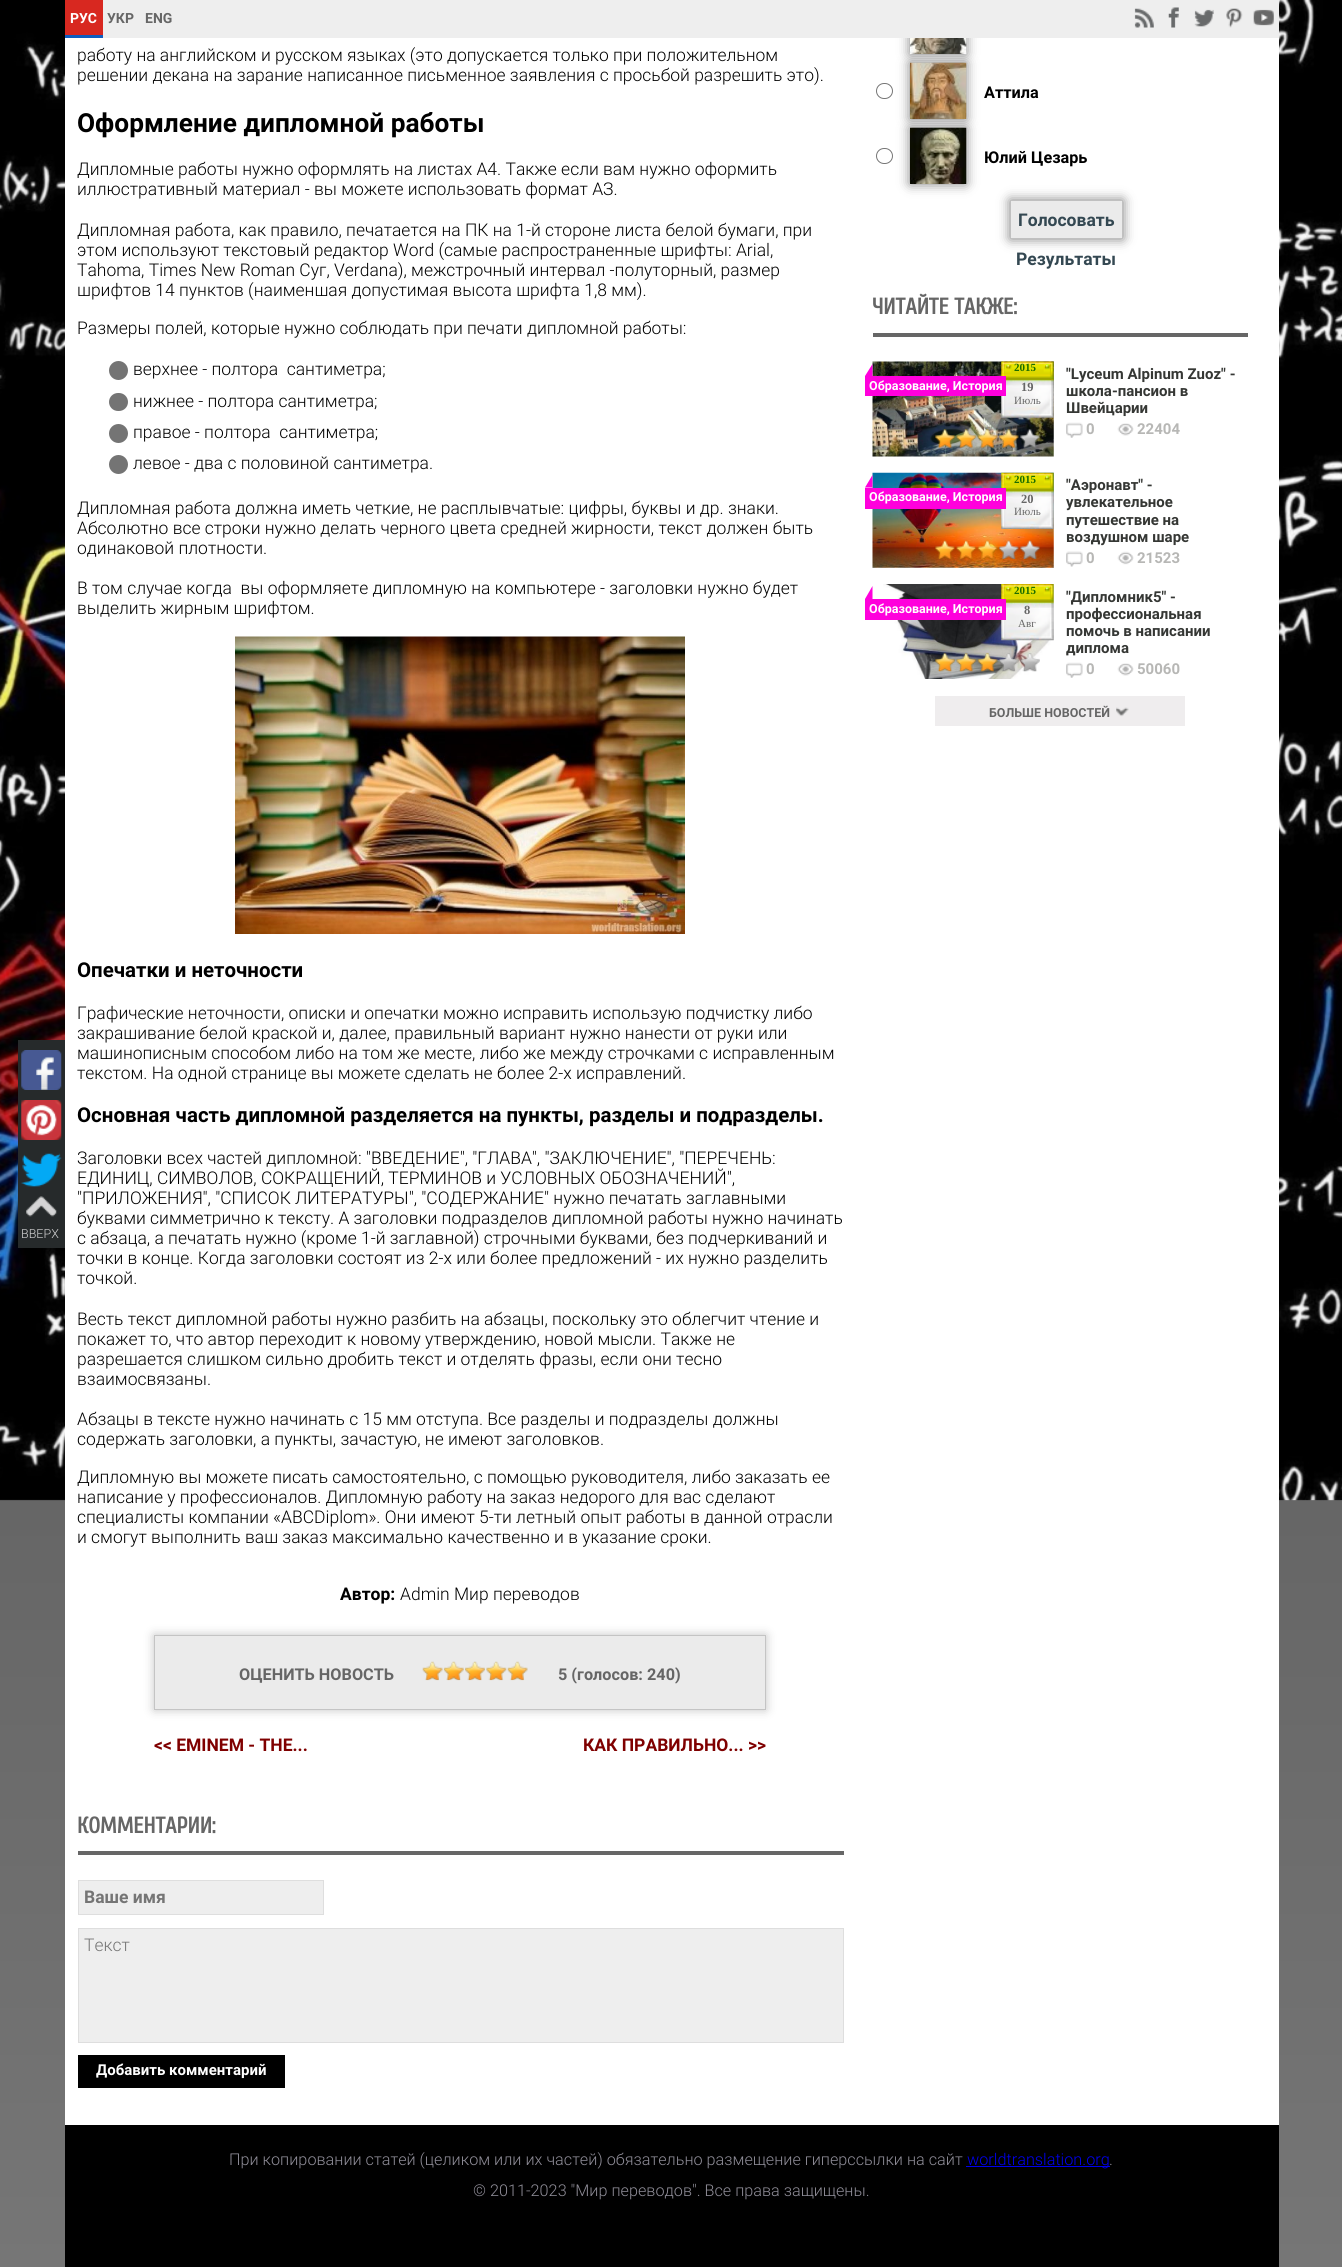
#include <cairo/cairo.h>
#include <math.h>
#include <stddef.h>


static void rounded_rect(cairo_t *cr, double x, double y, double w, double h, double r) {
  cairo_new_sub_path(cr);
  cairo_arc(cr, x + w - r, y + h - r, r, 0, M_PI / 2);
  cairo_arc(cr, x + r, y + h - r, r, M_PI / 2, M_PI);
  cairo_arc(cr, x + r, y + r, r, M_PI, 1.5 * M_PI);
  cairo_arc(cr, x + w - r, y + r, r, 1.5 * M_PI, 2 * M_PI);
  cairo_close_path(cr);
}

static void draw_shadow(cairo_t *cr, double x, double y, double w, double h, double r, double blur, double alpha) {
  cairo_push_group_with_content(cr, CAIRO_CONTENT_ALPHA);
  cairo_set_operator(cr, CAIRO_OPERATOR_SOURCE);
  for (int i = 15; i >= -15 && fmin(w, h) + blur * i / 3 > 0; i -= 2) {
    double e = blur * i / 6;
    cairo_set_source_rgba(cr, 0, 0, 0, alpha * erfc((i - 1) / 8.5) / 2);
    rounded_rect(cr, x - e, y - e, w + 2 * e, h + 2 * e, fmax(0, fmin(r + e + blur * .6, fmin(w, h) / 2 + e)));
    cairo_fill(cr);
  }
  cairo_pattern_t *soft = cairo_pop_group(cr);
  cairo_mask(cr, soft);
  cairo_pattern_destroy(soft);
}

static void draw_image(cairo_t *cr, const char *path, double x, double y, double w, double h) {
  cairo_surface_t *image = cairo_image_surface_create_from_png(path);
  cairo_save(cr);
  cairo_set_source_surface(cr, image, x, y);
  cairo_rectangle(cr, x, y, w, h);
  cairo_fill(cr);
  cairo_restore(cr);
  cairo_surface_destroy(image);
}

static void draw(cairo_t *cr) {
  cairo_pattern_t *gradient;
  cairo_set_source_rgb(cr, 1, 1, 1);
  cairo_paint(cr);
  gradient = cairo_pattern_create_linear(671, 0, 671, 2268);
  cairo_pattern_add_color_stop_rgba(gradient, 0, 70 / 255.0, 70 / 255.0, 70 / 255.0, 1);
  cairo_pattern_add_color_stop_rgba(gradient, 1, 118 / 255.0, 118 / 255.0, 118 / 255.0, 1);
  cairo_set_source(cr, gradient);
  cairo_pattern_destroy(gradient);
  cairo_rectangle(cr, 0, 1499, 1342, 768);
  cairo_fill(cr);
  draw_image(cr, "images/1.png", 0, 0, 65, 1501);
  draw_image(cr, "images/2.png", 1279, 0, 63, 1501);
  cairo_set_source_rgb(cr, 0, 0, 0);
  draw_shadow(cr, 910, -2, 56, 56, 0, 6, 0.5);
  cairo_set_source_rgb(cr, 238 / 255.0, 238 / 255.0, 238 / 255.0);
  cairo_rectangle(cr, 103, 0, 1176, 38);
  cairo_fill(cr);
  cairo_set_source_rgb(cr, 216 / 255.0, 40 / 255.0, 32 / 255.0);
  cairo_rectangle(cr, 65, 0, 38, 35);
  cairo_fill(cr);
  cairo_set_source_rgb(cr, 13 / 255.0, 93 / 255.0, 193 / 255.0);
  cairo_rectangle(cr, 65, 35, 38, 3);
  cairo_fill(cr);
  draw_image(cr, "images/3.png", 1134, 8, 20, 20);
  draw_image(cr, "images/4.png", 1168, 7, 11, 21);
  draw_image(cr, "images/5.png", 1194, 9, 20, 18);
  draw_image(cr, "images/6.png", 1226, 8, 17, 20);
  draw_image(cr, "images/7.png", 1253, 9, 21, 17);
  cairo_set_source_rgb(cr, 1, 1, 1);
  cairo_rectangle(cr, 65, 1499, 1214, 626);
  cairo_fill(cr);
  cairo_set_source_rgb(cr, 116 / 255.0, 116 / 255.0, 116 / 255.0);
  cairo_arc(cr, 118.5, 370.5, 9.5, 0, 2 * M_PI);
  cairo_fill(cr);
  rounded_rect(cr, 109, 393, 19, 18, 9);
  cairo_fill(cr);
  cairo_arc(cr, 118.5, 433.5, 9.5, 0, 2 * M_PI);
  cairo_fill(cr);
  cairo_arc(cr, 118.5, 464.5, 9.5, 0, 2 * M_PI);
  cairo_fill(cr);
  draw_image(cr, "images/8.png", 235, 636, 450, 298);
  cairo_set_source_rgb(cr, 196 / 255.0, 196 / 255.0, 196 / 255.0);
  draw_shadow(cr, 154, 1635, 612, 75, 0, 5, 1);
  cairo_set_source_rgb(cr, 235 / 255.0, 235 / 255.0, 235 / 255.0);
  cairo_rectangle(cr, 154.5, 1635.5, 611, 74);
  cairo_fill_preserve(cr);
  cairo_set_source_rgb(cr, 196 / 255.0, 196 / 255.0, 196 / 255.0);
  cairo_set_line_width(cr, 1);
  cairo_stroke(cr);
  draw_image(cr, "images/9.png", 422, 1661, 21, 20);
  draw_image(cr, "images/10.png", 443, 1661, 21, 20);
  draw_image(cr, "images/11.png", 465, 1661, 20, 20);
  draw_image(cr, "images/12.png", 486, 1661, 21, 20);
  draw_image(cr, "images/9.png", 507, 1661, 21, 20);
  cairo_set_source_rgb(cr, 102 / 255.0, 102 / 255.0, 102 / 255.0);
  cairo_rectangle(cr, 78, 1851, 766, 4);
  cairo_fill(cr);
  cairo_set_source_rgb(cr, 238 / 255.0, 238 / 255.0, 238 / 255.0);
  cairo_rectangle(cr, 78.5, 1880.5, 245, 34);
  cairo_fill_preserve(cr);
  cairo_set_source_rgb(cr, 222 / 255.0, 222 / 255.0, 222 / 255.0);
  cairo_stroke(cr);
  cairo_set_source_rgb(cr, 238 / 255.0, 238 / 255.0, 238 / 255.0);
  cairo_rectangle(cr, 78.5, 1928.5, 765, 114);
  cairo_fill_preserve(cr);
  cairo_set_source_rgb(cr, 222 / 255.0, 222 / 255.0, 222 / 255.0);
  cairo_stroke(cr);
  cairo_set_source_rgb(cr, 0, 0, 0);
  cairo_rectangle(cr, 78, 2055, 207, 33);
  cairo_fill(cr);
  draw_image(cr, "images/13.png", 910, 38, 57, 16);
  rounded_rect(cr, 876.5, 83.5, 16, 15, 7.5);
  cairo_set_source_rgb(cr, 118 / 255.0, 118 / 255.0, 118 / 255.0);
  cairo_stroke(cr);
  cairo_set_source_rgb(cr, 0, 0, 0);
  draw_shadow(cr, 910, 63, 56, 56, 0, 6, 0.5);
  draw_image(cr, "images/14.png", 910, 62, 57, 57);
  rounded_rect(cr, 876.5, 148.5, 16, 15, 7.5);
  cairo_set_source_rgb(cr, 118 / 255.0, 118 / 255.0, 118 / 255.0);
  cairo_stroke(cr);
  cairo_set_source_rgb(cr, 0, 0, 0);
  draw_shadow(cr, 910, 128, 56, 56, 0, 6, 0.5);
  draw_image(cr, "images/15.png", 910, 127, 57, 57);
  draw_shadow(cr, 1010, 200, 113, 39, 0, 6, 0.5);
  cairo_set_source_rgb(cr, 235 / 255.0, 235 / 255.0, 235 / 255.0);
  cairo_rectangle(cr, 1010.5, 200.5, 112, 38);
  cairo_fill_preserve(cr);
  cairo_set_source_rgb(cr, 192 / 255.0, 192 / 255.0, 192 / 255.0);
  cairo_stroke(cr);
  cairo_set_source_rgb(cr, 102 / 255.0, 102 / 255.0, 102 / 255.0);
  cairo_rectangle(cr, 873, 333, 375, 4);
  cairo_fill(cr);
  draw_image(cr, "images/16.png", 872, 361, 182, 96);
  draw_image(cr, "images/17.png", 1001, 361, 53, 57);
  cairo_set_source_rgb(cr, 1, 0, 220 / 255.0);
  cairo_rectangle(cr, 865, 376, 141, 20);
  cairo_fill(cr);
  cairo_new_path(cr);
  cairo_move_to(cr, 872.5, 376);
  cairo_line_to(cr, 865, 376);
  cairo_line_to(cr, 872.5, 364);
  cairo_close_path(cr);
  cairo_fill(cr);
  draw_image(cr, "images/18.png", 935, 429, 20, 19);
  draw_image(cr, "images/19.png", 956, 429, 21, 19);
  draw_image(cr, "images/20.png", 977, 429, 21, 19);
  draw_image(cr, "images/21.png", 999, 429, 20, 19);
  draw_image(cr, "images/22.png", 1020, 429, 20, 19);
  draw_image(cr, "images/23.png", 1066, 422, 17, 16);
  draw_image(cr, "images/24.png", 1117, 423, 17, 13);
  draw_image(cr, "images/25.png", 872, 472, 182, 96);
  draw_image(cr, "images/26.png", 1001, 472, 53, 57);
  cairo_rectangle(cr, 865, 488, 141, 21);
  cairo_fill(cr);
  cairo_new_path(cr);
  cairo_move_to(cr, 872.5, 487.5);
  cairo_line_to(cr, 865, 487.5);
  cairo_line_to(cr, 872.5, 475);
  cairo_close_path(cr);
  cairo_fill(cr);
  draw_image(cr, "images/27.png", 935, 540, 20, 19);
  draw_image(cr, "images/28.png", 956, 540, 21, 19);
  draw_image(cr, "images/29.png", 977, 540, 21, 19);
  draw_image(cr, "images/30.png", 998, 540, 21, 19);
  draw_image(cr, "images/31.png", 1020, 540, 20, 19);
  draw_image(cr, "images/32.png", 1066, 551, 17, 16);
  draw_image(cr, "images/33.png", 1117, 551, 17, 14);
  draw_image(cr, "images/34.png", 883, 584, 168, 95);
  draw_image(cr, "images/35.png", 1001, 584, 53, 57);
  cairo_rectangle(cr, 865, 599, 141, 21);
  cairo_fill(cr);
  cairo_new_path(cr);
  cairo_move_to(cr, 872.5, 599);
  cairo_line_to(cr, 865, 599);
  cairo_line_to(cr, 872.5, 586);
  cairo_close_path(cr);
  cairo_fill(cr);
  draw_image(cr, "images/36.png", 935, 652, 20, 20);
  draw_image(cr, "images/37.png", 956, 653, 21, 19);
  draw_image(cr, "images/38.png", 977, 652, 21, 20);
  draw_image(cr, "images/39.png", 999, 653, 20, 19);
  draw_image(cr, "images/40.png", 1020, 653, 20, 19);
  draw_image(cr, "images/23.png", 1066, 662, 17, 16);
  draw_image(cr, "images/24.png", 1117, 663, 17, 13);
  cairo_set_source_rgb(cr, 239 / 255.0, 237 / 255.0, 238 / 255.0);
  cairo_rectangle(cr, 935, 696, 250, 30);
  cairo_fill(cr);
  draw_image(cr, "images/41.png", 1116, 707, 13, 10);
  cairo_set_source_rgb(cr, 38 / 255.0, 42 / 255.0, 43 / 255.0);
  cairo_rectangle(cr, 18, 1040, 47, 208);
  cairo_fill(cr);
  draw_image(cr, "images/42.png", 21, 1050, 41, 40);
  draw_image(cr, "images/43.png", 21, 1100, 41, 40);
  draw_image(cr, "images/44.png", 21, 1153, 41, 34);
  draw_image(cr, "images/45.png", 26, 1196, 31, 21);
  cairo_set_source_rgb(cr, 0, 0, 0);
  cairo_rectangle(cr, 65, 2125, 1214, 142);
  cairo_fill(cr);
  cairo_set_source_rgb(cr, 0, 0, 238 / 255.0);
  cairo_rectangle(cr, 966, 2166, 144, 1);
  cairo_fill(cr);
  cairo_select_font_face(cr, "Roboto", CAIRO_FONT_SLANT_NORMAL, CAIRO_FONT_WEIGHT_BOLD);
  cairo_set_font_size(cr, 14);
  cairo_set_source_rgb(cr, 1, 1, 1);
  cairo_move_to(cr, 70, 23);
  cairo_show_text(cr, "РУС");
  cairo_set_source_rgb(cr, 102 / 255.0, 102 / 255.0, 102 / 255.0);
  cairo_move_to(cr, 107, 23);
  cairo_show_text(cr, "УКР");
  cairo_move_to(cr, 145, 23);
  cairo_show_text(cr, "ENG");
  cairo_select_font_face(cr, "Roboto Light", CAIRO_FONT_SLANT_NORMAL, CAIRO_FONT_WEIGHT_NORMAL);
  cairo_set_font_size(cr, 17.5);
  cairo_set_source_rgb(cr, 0, 0, 0);
  cairo_move_to(cr, 77, 61);
  cairo_show_text(cr, "работу на английском и русском языках (это допускается только при положительном");
  cairo_move_to(cr, 77, 81);
  cairo_show_text(cr, "решении декана на зарание написанное письменное заявления с просьбой разрешить это).");
  cairo_select_font_face(cr, "Roboto", CAIRO_FONT_SLANT_NORMAL, CAIRO_FONT_WEIGHT_BOLD);
  cairo_set_font_size(cr, 26.25);
  cairo_move_to(cr, 77, 132);
  cairo_show_text(cr, "Оформление дипломной работы");
  cairo_select_font_face(cr, "Roboto Light", CAIRO_FONT_SLANT_NORMAL, CAIRO_FONT_WEIGHT_NORMAL);
  cairo_set_font_size(cr, 17.5);
  cairo_move_to(cr, 77, 175);
  cairo_show_text(cr, "Дипломные работы нужно оформлять на листах А4. Также если вам нужно оформить");
  cairo_move_to(cr, 77, 195);
  cairo_show_text(cr, "иллюстративный материал - вы можете использовать формат АЗ.");
  cairo_move_to(cr, 77, 236);
  cairo_show_text(cr, "Дипломная работа, как правило, печатается на ПК на 1-й стороне листа белой бумаги, при");
  cairo_move_to(cr, 77, 256);
  cairo_show_text(cr, "этом используют текстовый редактор Word (самые распространенные шрифты: Arial,");
  cairo_move_to(cr, 77, 276);
  cairo_show_text(cr, "Tahoma, Times New Roman Суг, Verdana), межстрочный интервал -полуторный, размер");
  cairo_move_to(cr, 77, 296);
  cairo_show_text(cr, "шрифтов 14 пунктов (наименшая допустимая высота шрифта 1,8 мм).");
  cairo_move_to(cr, 77, 334);
  cairo_show_text(cr, "Размеры полей, которые нужно соблюдать при печати дипломной работы:");
  cairo_move_to(cr, 133, 375);
  cairo_show_text(cr, "верхнее - полтора  сантиметра;");
  cairo_move_to(cr, 133, 407);
  cairo_show_text(cr, "нижнее - полтора сантиметра;");
  cairo_move_to(cr, 133, 438);
  cairo_show_text(cr, "правое - полтора  сантиметра;");
  cairo_move_to(cr, 133, 469);
  cairo_show_text(cr, "левое - два с половиной сантиметра.");
  cairo_move_to(cr, 77, 514);
  cairo_show_text(cr, "Дипломная работа должна иметь четкие, не расплывчатые: цифры, буквы и др. знаки.");
  cairo_move_to(cr, 77, 534);
  cairo_show_text(cr, "Абсолютно все строки нужно делать черного цвета средней жирности, текст должен быть");
  cairo_move_to(cr, 77, 554);
  cairo_show_text(cr, "одинаковой плотности.");
  cairo_move_to(cr, 77, 594);
  cairo_show_text(cr, "В том случае когда  вы оформляете дипломную на компьютере - заголовки нужно будет");
  cairo_move_to(cr, 77, 614);
  cairo_show_text(cr, "выделить жирным шрифтом.");
  cairo_select_font_face(cr, "Roboto", CAIRO_FONT_SLANT_NORMAL, CAIRO_FONT_WEIGHT_BOLD);
  cairo_set_font_size(cr, 20.45);
  cairo_move_to(cr, 77, 977);
  cairo_show_text(cr, "Опечатки и неточности");
  cairo_select_font_face(cr, "Roboto Light", CAIRO_FONT_SLANT_NORMAL, CAIRO_FONT_WEIGHT_NORMAL);
  cairo_set_font_size(cr, 17.5);
  cairo_move_to(cr, 77, 1019);
  cairo_show_text(cr, "Графические неточности, описки и опечатки можно исправить использую подчистку либо");
  cairo_move_to(cr, 77, 1039);
  cairo_show_text(cr, "закрашивание белой краской и, далее, правильный вариант нужно нанести от руки или");
  cairo_move_to(cr, 77, 1059);
  cairo_show_text(cr, "машинописным способом либо на том же месте, либо же между строчками с исправленным");
  cairo_move_to(cr, 77, 1079);
  cairo_show_text(cr, "текстом. На одной странице вы можете сделать не более 2-х исправлений.");
  cairo_select_font_face(cr, "Roboto", CAIRO_FONT_SLANT_NORMAL, CAIRO_FONT_WEIGHT_BOLD);
  cairo_set_font_size(cr, 20.45);
  cairo_move_to(cr, 77, 1122);
  cairo_show_text(cr, "Основная часть дипломной разделяется на пункты, разделы и подразделы.");
  cairo_select_font_face(cr, "Roboto Light", CAIRO_FONT_SLANT_NORMAL, CAIRO_FONT_WEIGHT_NORMAL);
  cairo_set_font_size(cr, 17.5);
  cairo_move_to(cr, 77, 1164);
  cairo_show_text(cr, "Заголовки всех частей дипломной: \"ВВЕДЕНИЕ\", \"ГЛАВА\", \"ЗАКЛЮЧЕНИЕ\", \"ПЕРЕЧЕНЬ:");
  cairo_move_to(cr, 77, 1184);
  cairo_show_text(cr, "ЕДИНИЦ, CИМВОЛОВ, СОКРАЩЕНИЙ, ТЕРМИНОВ и УСЛОВНЫХ ОБОЗНАЧЕНИЙ\",");
  cairo_move_to(cr, 77, 1204);
  cairo_show_text(cr, "\"ПРИЛОЖЕНИЯ\", \"СПИСОК ЛИТЕРАТУРЫ\", \"СОДЕРЖАНИЕ\" нужно печатать заглавными");
  cairo_move_to(cr, 77, 1224);
  cairo_show_text(cr, "буквами симметрично к тексту. А заголовки подразделов дипломной работы нужно начинать");
  cairo_move_to(cr, 77, 1244);
  cairo_show_text(cr, "с абзаца, а печатать нужно (кроме 1-й заглавной) строчными буквами, без подчеркиваний и");
  cairo_move_to(cr, 77, 1264);
  cairo_show_text(cr, "точки в конце. Когда заголовки состоят из 2-х или более предложений - их нужно разделить");
  cairo_move_to(cr, 77, 1284);
  cairo_show_text(cr, "точкой.");
  cairo_move_to(cr, 77, 1325);
  cairo_show_text(cr, "Весть текст дипломной работы нужно разбить на абзацы, поскольку это облегчит чтение и");
  cairo_move_to(cr, 77, 1345);
  cairo_show_text(cr, "покажет то, что автор переходит к новому утверждению, новой мысли. Также не");
  cairo_move_to(cr, 77, 1365);
  cairo_show_text(cr, "разрешается слишком сильно дробить текст и отделять фразы, если они тесно");
  cairo_move_to(cr, 77, 1385);
  cairo_show_text(cr, "взаимосвязаны.");
  cairo_move_to(cr, 77, 1425);
  cairo_show_text(cr, "Абзацы в тексте нужно начинать с 15 мм отступа. Все разделы и подразделы должны");
  cairo_move_to(cr, 77, 1445);
  cairo_show_text(cr, "содержать заголовки, а пункты, зачастую, не имеют заголовков.");
  cairo_move_to(cr, 77, 1483);
  cairo_show_text(cr, "Дипломную вы можете писать самостоятельно, с помощью руководителя, либо заказать ее");
  cairo_move_to(cr, 77, 1503);
  cairo_show_text(cr, "написание у профессионалов. Дипломную работу на заказ недорого для вас сделают");
  cairo_move_to(cr, 77, 1523);
  cairo_show_text(cr, "специалисты компании «ABCDiplom». Они имеют 5-ти летный опыт работы в данной отрасли");
  cairo_move_to(cr, 77, 1543);
  cairo_show_text(cr, "и смогут выполнить ваш заказ максимально качественно и в указание сроки.");
  cairo_select_font_face(cr, "Roboto", CAIRO_FONT_SLANT_NORMAL, CAIRO_FONT_WEIGHT_BOLD);
  cairo_move_to(cr, 340, 1600);
  cairo_show_text(cr, "Автор:");
  cairo_select_font_face(cr, "Roboto Light", CAIRO_FONT_SLANT_NORMAL, CAIRO_FONT_WEIGHT_NORMAL);
  cairo_move_to(cr, 400, 1600);
  cairo_show_text(cr, "Admin Мир переводов");
  cairo_select_font_face(cr, "Roboto", CAIRO_FONT_SLANT_NORMAL, CAIRO_FONT_WEIGHT_BOLD);
  cairo_set_font_size(cr, 16.25);
  cairo_set_source_rgb(cr, 102 / 255.0, 102 / 255.0, 102 / 255.0);
  cairo_move_to(cr, 239, 1680);
  cairo_show_text(cr, "ОЦЕНИТЬ НОВОСТЬ");
  cairo_move_to(cr, 558, 1680);
  cairo_show_text(cr, "5 (голосов: 240)");
  cairo_set_font_size(cr, 17.5);
  cairo_set_source_rgb(cr, 127 / 255.0, 0, 0);
  cairo_move_to(cr, 154, 1751);
  cairo_show_text(cr, "<< EMINEM - THE...");
  cairo_move_to(cr, 583, 1751);
  cairo_show_text(cr, "КАК ПРАВИЛЬНО... >>");
  cairo_select_font_face(cr, "Cuprum", CAIRO_FONT_SLANT_NORMAL, CAIRO_FONT_WEIGHT_BOLD);
  cairo_set_font_size(cr, 22.5);
  cairo_set_source_rgb(cr, 102 / 255.0, 102 / 255.0, 102 / 255.0);
  cairo_move_to(cr, 77, 1833);
  cairo_show_text(cr, "КОММЕНТАРИИ:");
  cairo_select_font_face(cr, "Roboto", CAIRO_FONT_SLANT_NORMAL, CAIRO_FONT_WEIGHT_BOLD);
  cairo_set_font_size(cr, 17.5);
  cairo_set_source_rgb(cr, 117 / 255.0, 117 / 255.0, 117 / 255.0);
  cairo_move_to(cr, 84, 1903);
  cairo_show_text(cr, "Ваше имя");
  cairo_select_font_face(cr, "Roboto Light", CAIRO_FONT_SLANT_NORMAL, CAIRO_FONT_WEIGHT_NORMAL);
  cairo_move_to(cr, 84, 1951);
  cairo_show_text(cr, "Текст");
  cairo_select_font_face(cr, "Roboto", CAIRO_FONT_SLANT_NORMAL, CAIRO_FONT_WEIGHT_BOLD);
  cairo_set_font_size(cr, 15);
  cairo_set_source_rgb(cr, 1, 1, 1);
  cairo_move_to(cr, 96, 2075);
  cairo_show_text(cr, "Добавить комментарий");
  cairo_set_font_size(cr, 16.25);
  cairo_set_source_rgb(cr, 0, 0, 0);
  cairo_move_to(cr, 984, 98);
  cairo_show_text(cr, "Аттила");
  cairo_move_to(cr, 984, 163);
  cairo_show_text(cr, "Юлий Цезарь");
  cairo_set_font_size(cr, 17.5);
  cairo_set_source_rgb(cr, 52 / 255.0, 72 / 255.0, 82 / 255.0);
  cairo_move_to(cr, 1018, 226);
  cairo_show_text(cr, "Голосовать");
  cairo_move_to(cr, 1016, 265);
  cairo_show_text(cr, "Результаты");
  cairo_select_font_face(cr, "Cuprum", CAIRO_FONT_SLANT_NORMAL, CAIRO_FONT_WEIGHT_BOLD);
  cairo_set_font_size(cr, 22.5);
  cairo_set_source_rgb(cr, 102 / 255.0, 102 / 255.0, 102 / 255.0);
  cairo_move_to(cr, 872, 314);
  cairo_show_text(cr, "ЧИТАЙТЕ ТАКЖЕ:");
  cairo_select_font_face(cr, "Roboto", CAIRO_FONT_SLANT_NORMAL, CAIRO_FONT_WEIGHT_BOLD);
  cairo_set_font_size(cr, 12.5);
  cairo_set_source_rgb(cr, 1, 1, 1);
  cairo_move_to(cr, 869, 390);
  cairo_show_text(cr, "Образование, История");
  cairo_select_font_face(cr, "Liberation Serif", CAIRO_FONT_SLANT_NORMAL, CAIRO_FONT_WEIGHT_BOLD);
  cairo_set_font_size(cr, 11);
  cairo_set_source_rgb(cr, 28 / 255.0, 108 / 255.0, 0);
  cairo_move_to(cr, 1014, 371);
  cairo_show_text(cr, "2015");
  cairo_set_font_size(cr, 12.5);
  cairo_set_source_rgb(cr, 102 / 255.0, 102 / 255.0, 102 / 255.0);
  cairo_move_to(cr, 1021, 391);
  cairo_show_text(cr, "19");
  cairo_select_font_face(cr, "Liberation Serif", CAIRO_FONT_SLANT_NORMAL, CAIRO_FONT_WEIGHT_NORMAL);
  cairo_set_font_size(cr, 11);
  cairo_move_to(cr, 1014, 404);
  cairo_show_text(cr, "Июль");
  cairo_select_font_face(cr, "Roboto", CAIRO_FONT_SLANT_NORMAL, CAIRO_FONT_WEIGHT_BOLD);
  cairo_set_font_size(cr, 15);
  cairo_set_source_rgb(cr, 53 / 255.0, 55 / 255.0, 52 / 255.0);
  cairo_move_to(cr, 1066, 379);
  cairo_show_text(cr, "\"Lyceum Alpinum Zuoz\" -");
  cairo_move_to(cr, 1066, 396);
  cairo_show_text(cr, "школа-пансион в");
  cairo_move_to(cr, 1066, 413);
  cairo_show_text(cr, "Швейцарии");
  cairo_set_source_rgb(cr, 183 / 255.0, 183 / 255.0, 181 / 255.0);
  cairo_move_to(cr, 1086, 434);
  cairo_show_text(cr, "0");
  cairo_move_to(cr, 1137, 434);
  cairo_show_text(cr, "22404");
  cairo_set_font_size(cr, 12.5);
  cairo_set_source_rgb(cr, 1, 1, 1);
  cairo_move_to(cr, 869, 501);
  cairo_show_text(cr, "Образование, История");
  cairo_select_font_face(cr, "Liberation Serif", CAIRO_FONT_SLANT_NORMAL, CAIRO_FONT_WEIGHT_BOLD);
  cairo_set_font_size(cr, 11);
  cairo_set_source_rgb(cr, 28 / 255.0, 108 / 255.0, 0);
  cairo_move_to(cr, 1014, 483);
  cairo_show_text(cr, "2015");
  cairo_set_font_size(cr, 12.5);
  cairo_set_source_rgb(cr, 102 / 255.0, 102 / 255.0, 102 / 255.0);
  cairo_move_to(cr, 1021, 503);
  cairo_show_text(cr, "20");
  cairo_select_font_face(cr, "Liberation Serif", CAIRO_FONT_SLANT_NORMAL, CAIRO_FONT_WEIGHT_NORMAL);
  cairo_set_font_size(cr, 11);
  cairo_move_to(cr, 1014, 515);
  cairo_show_text(cr, "Июль");
  cairo_select_font_face(cr, "Roboto", CAIRO_FONT_SLANT_NORMAL, CAIRO_FONT_WEIGHT_BOLD);
  cairo_set_font_size(cr, 15);
  cairo_set_source_rgb(cr, 53 / 255.0, 55 / 255.0, 52 / 255.0);
  cairo_move_to(cr, 1066, 490);
  cairo_show_text(cr, "\"Аэронавт\" -");
  cairo_move_to(cr, 1066, 507);
  cairo_show_text(cr, "увлекательное");
  cairo_move_to(cr, 1066, 525);
  cairo_show_text(cr, "путешествие на");
  cairo_move_to(cr, 1066, 542);
  cairo_show_text(cr, "воздушном шаре");
  cairo_set_source_rgb(cr, 183 / 255.0, 183 / 255.0, 181 / 255.0);
  cairo_move_to(cr, 1086, 563);
  cairo_show_text(cr, "0");
  cairo_move_to(cr, 1137, 563);
  cairo_show_text(cr, "21523");
  cairo_set_font_size(cr, 12.5);
  cairo_set_source_rgb(cr, 1, 1, 1);
  cairo_move_to(cr, 869, 613);
  cairo_show_text(cr, "Образование, История");
  cairo_select_font_face(cr, "Liberation Serif", CAIRO_FONT_SLANT_NORMAL, CAIRO_FONT_WEIGHT_BOLD);
  cairo_set_font_size(cr, 11);
  cairo_set_source_rgb(cr, 28 / 255.0, 108 / 255.0, 0);
  cairo_move_to(cr, 1014, 594);
  cairo_show_text(cr, "2015");
  cairo_set_font_size(cr, 12.5);
  cairo_set_source_rgb(cr, 102 / 255.0, 102 / 255.0, 102 / 255.0);
  cairo_move_to(cr, 1024, 614);
  cairo_show_text(cr, "8");
  cairo_select_font_face(cr, "Liberation Serif", CAIRO_FONT_SLANT_NORMAL, CAIRO_FONT_WEIGHT_NORMAL);
  cairo_set_font_size(cr, 11);
  cairo_move_to(cr, 1018, 627);
  cairo_show_text(cr, "Авг");
  cairo_select_font_face(cr, "Roboto", CAIRO_FONT_SLANT_NORMAL, CAIRO_FONT_WEIGHT_BOLD);
  cairo_set_font_size(cr, 15);
  cairo_set_source_rgb(cr, 53 / 255.0, 55 / 255.0, 52 / 255.0);
  cairo_move_to(cr, 1066, 602);
  cairo_show_text(cr, "\"Дипломник5\" -");
  cairo_move_to(cr, 1066, 619);
  cairo_show_text(cr, "профессиональная");
  cairo_move_to(cr, 1066, 636);
  cairo_show_text(cr, "помочь в написании");
  cairo_move_to(cr, 1066, 653);
  cairo_show_text(cr, "диплома");
  cairo_set_source_rgb(cr, 183 / 255.0, 183 / 255.0, 181 / 255.0);
  cairo_move_to(cr, 1086, 674);
  cairo_show_text(cr, "0");
  cairo_move_to(cr, 1137, 674);
  cairo_show_text(cr, "50060");
  cairo_set_font_size(cr, 12.5);
  cairo_set_source_rgb(cr, 102 / 255.0, 102 / 255.0, 102 / 255.0);
  cairo_move_to(cr, 989, 717);
  cairo_show_text(cr, "БОЛЬШЕ НОВОСТЕЙ");
  cairo_select_font_face(cr, "Roboto Light", CAIRO_FONT_SLANT_NORMAL, CAIRO_FONT_WEIGHT_NORMAL);
  cairo_set_source_rgb(cr, 212 / 255.0, 212 / 255.0, 213 / 255.0);
  cairo_move_to(cr, 21, 1238);
  cairo_show_text(cr, "ВВЕРХ");
  cairo_set_font_size(cr, 16.25);
  cairo_set_source_rgb(cr, 143 / 255.0, 141 / 255.0, 152 / 255.0);
  cairo_move_to(cr, 229, 2165);
  cairo_show_text(cr, "При копировании статей (целиком или их частей) обязательно размещение гиперссылки на сайт");
  cairo_set_source_rgb(cr, 0, 0, 238 / 255.0);
  cairo_move_to(cr, 967, 2165);
  cairo_show_text(cr, "worldtranslation.org");
  cairo_set_source_rgb(cr, 143 / 255.0, 141 / 255.0, 152 / 255.0);
  cairo_move_to(cr, 1109, 2165);
  cairo_show_text(cr, ".");
  cairo_move_to(cr, 473, 2196);
  cairo_show_text(cr, "© 2011-2023 \"Мир переводов\". Все права защищены.");
}

int main(void) {
  cairo_surface_t *surface = cairo_image_surface_create(CAIRO_FORMAT_RGB24, 1342, 2267);
  cairo_t *cr = cairo_create(surface);
  cairo_font_options_t *options = cairo_font_options_create();
  cairo_font_options_set_hint_metrics(options, CAIRO_HINT_METRICS_OFF);
  cairo_font_options_set_hint_style(options, CAIRO_HINT_STYLE_NONE);
  cairo_set_font_options(cr, options);
  cairo_set_miter_limit(cr, 4);
  draw(cr);
  cairo_surface_write_to_png(surface, "out.png");
  cairo_font_options_destroy(options);
  cairo_destroy(cr);
  cairo_surface_destroy(surface);
  return 0;
}
